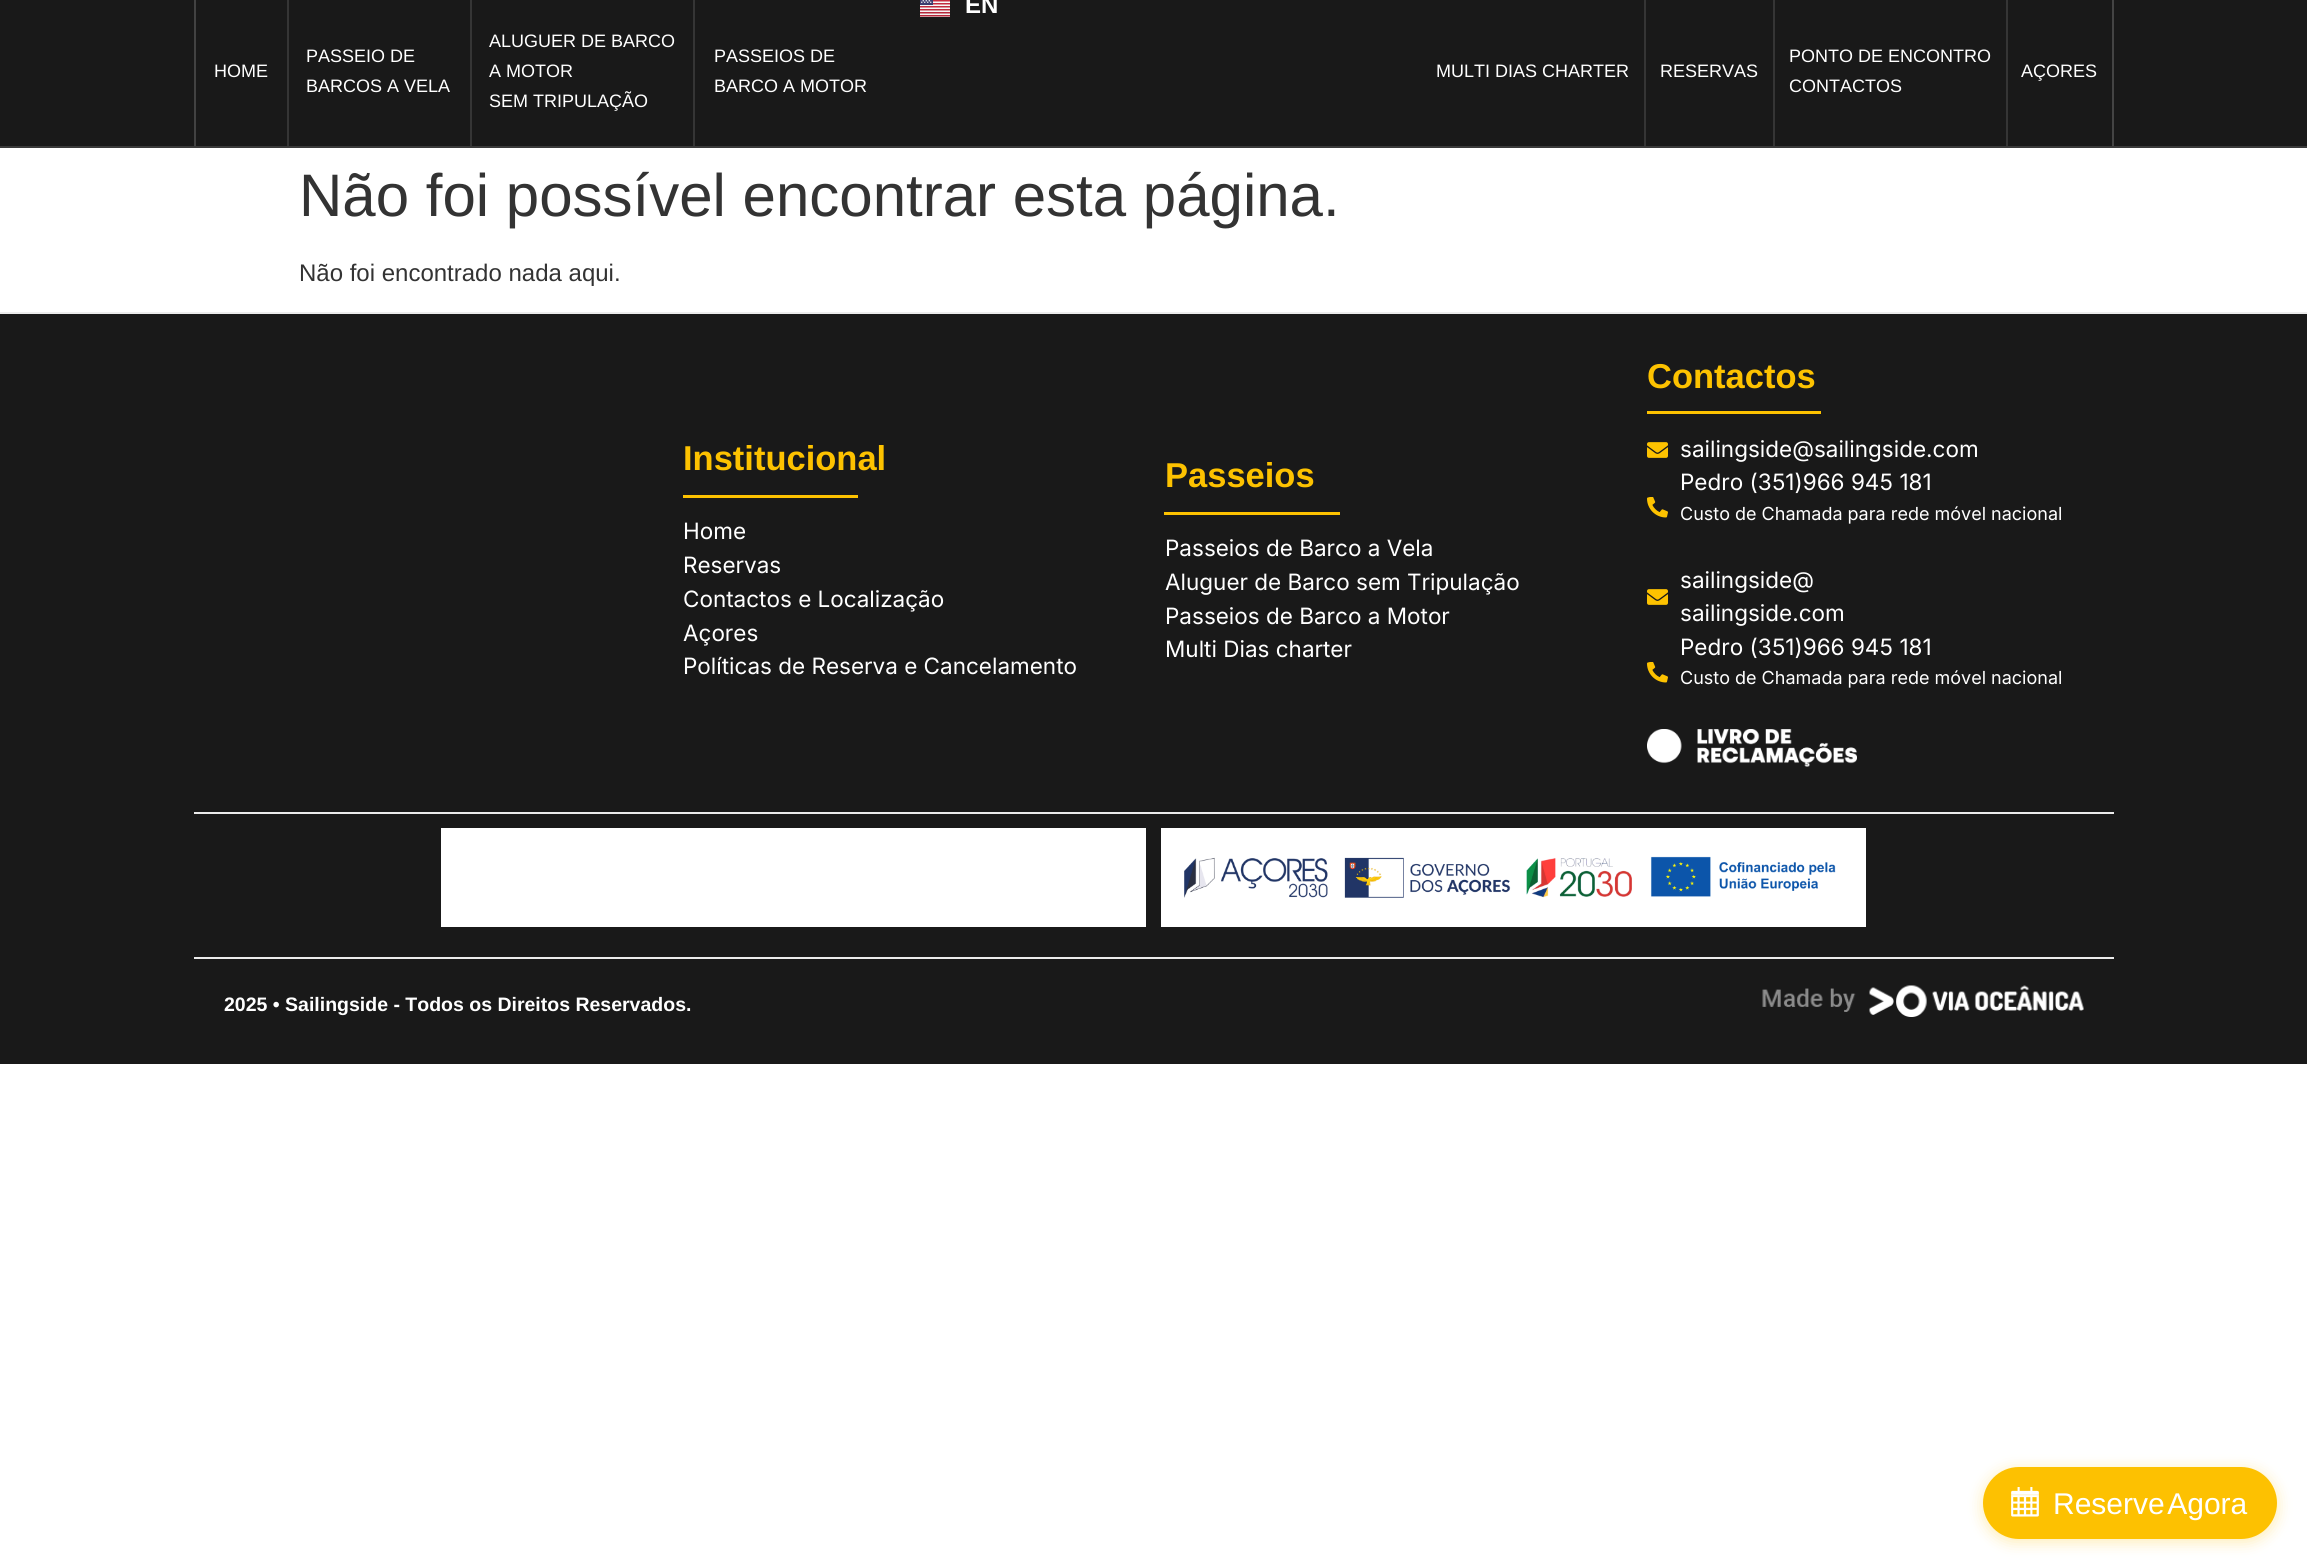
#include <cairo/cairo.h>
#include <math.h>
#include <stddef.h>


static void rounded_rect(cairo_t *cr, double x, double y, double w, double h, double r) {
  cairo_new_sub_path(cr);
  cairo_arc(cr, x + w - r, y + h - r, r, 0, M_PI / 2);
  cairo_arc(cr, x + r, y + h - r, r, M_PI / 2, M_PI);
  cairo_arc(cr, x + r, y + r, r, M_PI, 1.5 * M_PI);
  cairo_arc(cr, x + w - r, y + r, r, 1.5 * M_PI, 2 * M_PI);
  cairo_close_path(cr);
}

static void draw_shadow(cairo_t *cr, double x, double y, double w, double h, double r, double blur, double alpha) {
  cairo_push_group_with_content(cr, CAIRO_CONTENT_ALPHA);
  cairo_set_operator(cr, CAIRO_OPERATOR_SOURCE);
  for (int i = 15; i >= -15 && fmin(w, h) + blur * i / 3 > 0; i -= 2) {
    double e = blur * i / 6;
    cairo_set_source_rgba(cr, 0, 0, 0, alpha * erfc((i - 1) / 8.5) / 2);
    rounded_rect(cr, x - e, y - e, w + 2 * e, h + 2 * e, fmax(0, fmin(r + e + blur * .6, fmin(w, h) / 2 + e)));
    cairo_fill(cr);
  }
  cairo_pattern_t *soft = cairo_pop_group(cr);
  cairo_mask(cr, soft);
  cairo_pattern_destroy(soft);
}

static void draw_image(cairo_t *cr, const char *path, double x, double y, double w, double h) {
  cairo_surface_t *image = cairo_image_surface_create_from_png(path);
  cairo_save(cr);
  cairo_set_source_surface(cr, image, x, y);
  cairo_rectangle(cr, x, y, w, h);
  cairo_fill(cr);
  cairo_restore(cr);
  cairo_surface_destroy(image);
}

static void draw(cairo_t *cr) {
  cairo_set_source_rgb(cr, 1, 1, 1);
  cairo_paint(cr);
  cairo_set_source_rgb(cr, 25 / 255.0, 25 / 255.0, 25 / 255.0);
  cairo_rectangle(cr, 0, 0, 2307, 146);
  cairo_fill(cr);
  cairo_set_source_rgb(cr, 58 / 255.0, 58 / 255.0, 58 / 255.0);
  cairo_rectangle(cr, 0, 146, 2307, 2);
  cairo_fill(cr);
  draw_image(cr, "images/1.png", 920, 0, 30, 17);
  cairo_set_source_rgb(cr, 66 / 255.0, 66 / 255.0, 66 / 255.0);
  cairo_rectangle(cr, 194, 0, 2, 146);
  cairo_fill(cr);
  cairo_set_source_rgb(cr, 53 / 255.0, 53 / 255.0, 53 / 255.0);
  cairo_rectangle(cr, 287, 0, 2, 146);
  cairo_fill(cr);
  cairo_rectangle(cr, 470, 0, 2, 146);
  cairo_fill(cr);
  cairo_rectangle(cr, 693, 0, 2, 146);
  cairo_fill(cr);
  cairo_set_source_rgb(cr, 68 / 255.0, 68 / 255.0, 68 / 255.0);
  cairo_rectangle(cr, 2112, 0, 2, 146);
  cairo_fill(cr);
  cairo_set_source_rgb(cr, 53 / 255.0, 53 / 255.0, 53 / 255.0);
  cairo_rectangle(cr, 1644, 0, 2, 146);
  cairo_fill(cr);
  cairo_rectangle(cr, 1773, 0, 2, 146);
  cairo_fill(cr);
  cairo_rectangle(cr, 2006, 0, 2, 146);
  cairo_fill(cr);
  cairo_set_source_rgb(cr, 25 / 255.0, 25 / 255.0, 25 / 255.0);
  cairo_rectangle(cr, 0, 314, 2307, 750);
  cairo_fill(cr);
  cairo_set_source_rgb(cr, 236 / 255.0, 236 / 255.0, 236 / 255.0);
  cairo_rectangle(cr, 0, 312, 2307, 2);
  cairo_fill(cr);
  cairo_set_source_rgb(cr, 253 / 255.0, 194 / 255.0, 0);
  cairo_rectangle(cr, 683, 495, 175, 3);
  cairo_fill(cr);
  cairo_rectangle(cr, 1164, 512, 176, 3);
  cairo_fill(cr);
  cairo_rectangle(cr, 1647, 411, 174, 3);
  cairo_fill(cr);
  draw_image(cr, "images/2.png", 1647, 442, 21, 16);
  draw_image(cr, "images/3.png", 1647, 497, 21, 21);
  draw_image(cr, "images/2.png", 1647, 589, 21, 16);
  draw_image(cr, "images/3.png", 1647, 662, 21, 21);
  draw_image(cr, "images/4.png", 1647, 729, 210, 38);
  cairo_set_source_rgb(cr, 235 / 255.0, 235 / 255.0, 235 / 255.0);
  cairo_rectangle(cr, 194, 812, 1920, 2);
  cairo_fill(cr);
  cairo_set_source_rgb(cr, 1, 1, 1);
  cairo_rectangle(cr, 441, 828, 705, 99);
  cairo_fill(cr);
  cairo_rectangle(cr, 1161, 828, 705, 99);
  cairo_fill(cr);
  draw_image(cr, "images/5.png", 1184, 856, 652, 42);
  cairo_set_source_rgb(cr, 235 / 255.0, 235 / 255.0, 235 / 255.0);
  cairo_rectangle(cr, 194, 957, 1920, 2);
  cairo_fill(cr);
  draw_image(cr, "images/6.png", 1762, 985, 322, 32);
  cairo_set_source_rgb(cr, 253 / 255.0, 193 / 255.0, 1 / 255.0);
  draw_shadow(cr, 1983, 1470, 294, 72, 36, 7.5, 0.3);
  cairo_set_source_rgb(cr, 253 / 255.0, 193 / 255.0, 1 / 255.0);
  rounded_rect(cr, 1983, 1467, 294, 72, 36);
  cairo_fill(cr);
  draw_image(cr, "images/7.png", 2011, 1487, 28, 30);
  cairo_select_font_face(cr, "Liberation Sans", CAIRO_FONT_SLANT_NORMAL, CAIRO_FONT_WEIGHT_BOLD);
  cairo_set_font_size(cr, 24);
  cairo_set_source_rgb(cr, 1, 1, 1);
  cairo_move_to(cr, 965, 13);
  cairo_show_text(cr, "EN");
  cairo_select_font_face(cr, "Liberation Sans", CAIRO_FONT_SLANT_NORMAL, CAIRO_FONT_WEIGHT_NORMAL);
  cairo_set_font_size(cr, 18);
  cairo_move_to(cr, 214, 77);
  cairo_show_text(cr, "HOME");
  cairo_move_to(cr, 306, 62);
  cairo_show_text(cr, "PASSEIO DE");
  cairo_move_to(cr, 306, 92);
  cairo_show_text(cr, "BARCOS A VELA");
  cairo_move_to(cr, 489, 47);
  cairo_show_text(cr, "ALUGUER DE BARCO");
  cairo_move_to(cr, 489, 77);
  cairo_show_text(cr, "A MOTOR");
  cairo_move_to(cr, 489, 107);
  cairo_show_text(cr, "SEM TRIPULAÇÃO");
  cairo_move_to(cr, 714, 62);
  cairo_show_text(cr, "PASSEIOS DE");
  cairo_move_to(cr, 714, 92);
  cairo_show_text(cr, "BARCO A MOTOR");
  cairo_move_to(cr, 1436, 77);
  cairo_show_text(cr, "MULTI DIAS CHARTER");
  cairo_move_to(cr, 1660, 77);
  cairo_show_text(cr, "RESERVAS");
  cairo_move_to(cr, 1789, 62);
  cairo_show_text(cr, "PONTO DE ENCONTRO");
  cairo_move_to(cr, 1789, 92);
  cairo_show_text(cr, "CONTACTOS");
  cairo_move_to(cr, 2021, 77);
  cairo_show_text(cr, "AÇORES");
  cairo_set_font_size(cr, 60);
  cairo_set_source_rgb(cr, 51 / 255.0, 51 / 255.0, 51 / 255.0);
  cairo_move_to(cr, 299, 216);
  cairo_show_text(cr, "Não foi possível encontrar esta página.");
  cairo_set_font_size(cr, 24);
  cairo_move_to(cr, 299, 281);
  cairo_show_text(cr, "Não foi encontrado nada aqui.");
  cairo_select_font_face(cr, "Liberation Sans", CAIRO_FONT_SLANT_NORMAL, CAIRO_FONT_WEIGHT_BOLD);
  cairo_set_font_size(cr, 34.5);
  cairo_set_source_rgb(cr, 253 / 255.0, 194 / 255.0, 0);
  cairo_move_to(cr, 683, 470);
  cairo_show_text(cr, "Institucional");
  cairo_select_font_face(cr, "Inter", CAIRO_FONT_SLANT_NORMAL, CAIRO_FONT_WEIGHT_NORMAL);
  cairo_set_font_size(cr, 22.5);
  cairo_set_source_rgb(cr, 1, 1, 1);
  cairo_move_to(cr, 683, 539);
  cairo_show_text(cr, "Home");
  cairo_move_to(cr, 683, 573);
  cairo_show_text(cr, "Reservas");
  cairo_move_to(cr, 683, 607);
  cairo_show_text(cr, "Contactos e Localização");
  cairo_move_to(cr, 683, 641);
  cairo_show_text(cr, "Açores");
  cairo_move_to(cr, 683, 674);
  cairo_show_text(cr, "Políticas de Reserva e Cancelamento");
  cairo_select_font_face(cr, "Liberation Sans", CAIRO_FONT_SLANT_NORMAL, CAIRO_FONT_WEIGHT_BOLD);
  cairo_set_font_size(cr, 34.5);
  cairo_set_source_rgb(cr, 253 / 255.0, 194 / 255.0, 0);
  cairo_move_to(cr, 1165, 487);
  cairo_show_text(cr, "Passeios");
  cairo_select_font_face(cr, "Inter", CAIRO_FONT_SLANT_NORMAL, CAIRO_FONT_WEIGHT_NORMAL);
  cairo_set_font_size(cr, 22.5);
  cairo_set_source_rgb(cr, 1, 1, 1);
  cairo_move_to(cr, 1165, 556);
  cairo_show_text(cr, "Passeios de Barco a Vela");
  cairo_move_to(cr, 1165, 590);
  cairo_show_text(cr, "Aluguer de Barco sem Tripulação");
  cairo_move_to(cr, 1165, 624);
  cairo_show_text(cr, "Passeios de Barco a Motor");
  cairo_move_to(cr, 1165, 657);
  cairo_show_text(cr, "Multi Dias charter");
  cairo_select_font_face(cr, "Liberation Sans", CAIRO_FONT_SLANT_NORMAL, CAIRO_FONT_WEIGHT_BOLD);
  cairo_set_font_size(cr, 34.5);
  cairo_set_source_rgb(cr, 253 / 255.0, 194 / 255.0, 0);
  cairo_move_to(cr, 1647, 388);
  cairo_show_text(cr, "Contactos");
  cairo_select_font_face(cr, "Inter", CAIRO_FONT_SLANT_NORMAL, CAIRO_FONT_WEIGHT_NORMAL);
  cairo_set_font_size(cr, 22.5);
  cairo_set_source_rgb(cr, 1, 1, 1);
  cairo_move_to(cr, 1680, 457);
  cairo_show_text(cr, "sailingside@sailingside.com");
  cairo_move_to(cr, 1680, 490);
  cairo_show_text(cr, "Pedro (351)966 945 181");
  cairo_set_font_size(cr, 18);
  cairo_move_to(cr, 1680, 520);
  cairo_show_text(cr, "Custo de Chamada para rede móvel nacional");
  cairo_set_font_size(cr, 22.5);
  cairo_move_to(cr, 1680, 588);
  cairo_show_text(cr, "sailingside@");
  cairo_move_to(cr, 1680, 621);
  cairo_show_text(cr, "sailingside.com");
  cairo_move_to(cr, 1680, 655);
  cairo_show_text(cr, "Pedro (351)966 945 181");
  cairo_set_font_size(cr, 18);
  cairo_move_to(cr, 1680, 684);
  cairo_show_text(cr, "Custo de Chamada para rede móvel nacional");
  cairo_select_font_face(cr, "Liberation Sans", CAIRO_FONT_SLANT_NORMAL, CAIRO_FONT_WEIGHT_BOLD);
  cairo_set_font_size(cr, 19.5);
  cairo_move_to(cr, 224, 1011);
  cairo_show_text(cr, "2025 • Sailingside - Todos os Direitos Reservados.");
  cairo_select_font_face(cr, "Liberation Sans", CAIRO_FONT_SLANT_NORMAL, CAIRO_FONT_WEIGHT_NORMAL);
  cairo_set_font_size(cr, 30);
  cairo_move_to(cr, 2053, 1514);
  cairo_show_text(cr, "Reserve Agora");
}

int main(void) {
  cairo_surface_t *surface = cairo_image_surface_create(CAIRO_FORMAT_RGB24, 2307, 1568);
  cairo_t *cr = cairo_create(surface);
  cairo_font_options_t *options = cairo_font_options_create();
  cairo_font_options_set_hint_metrics(options, CAIRO_HINT_METRICS_OFF);
  cairo_font_options_set_hint_style(options, CAIRO_HINT_STYLE_NONE);
  cairo_set_font_options(cr, options);
  cairo_set_miter_limit(cr, 4);
  draw(cr);
  cairo_surface_write_to_png(surface, "out.png");
  cairo_font_options_destroy(options);
  cairo_destroy(cr);
  cairo_surface_destroy(surface);
  return 0;
}
